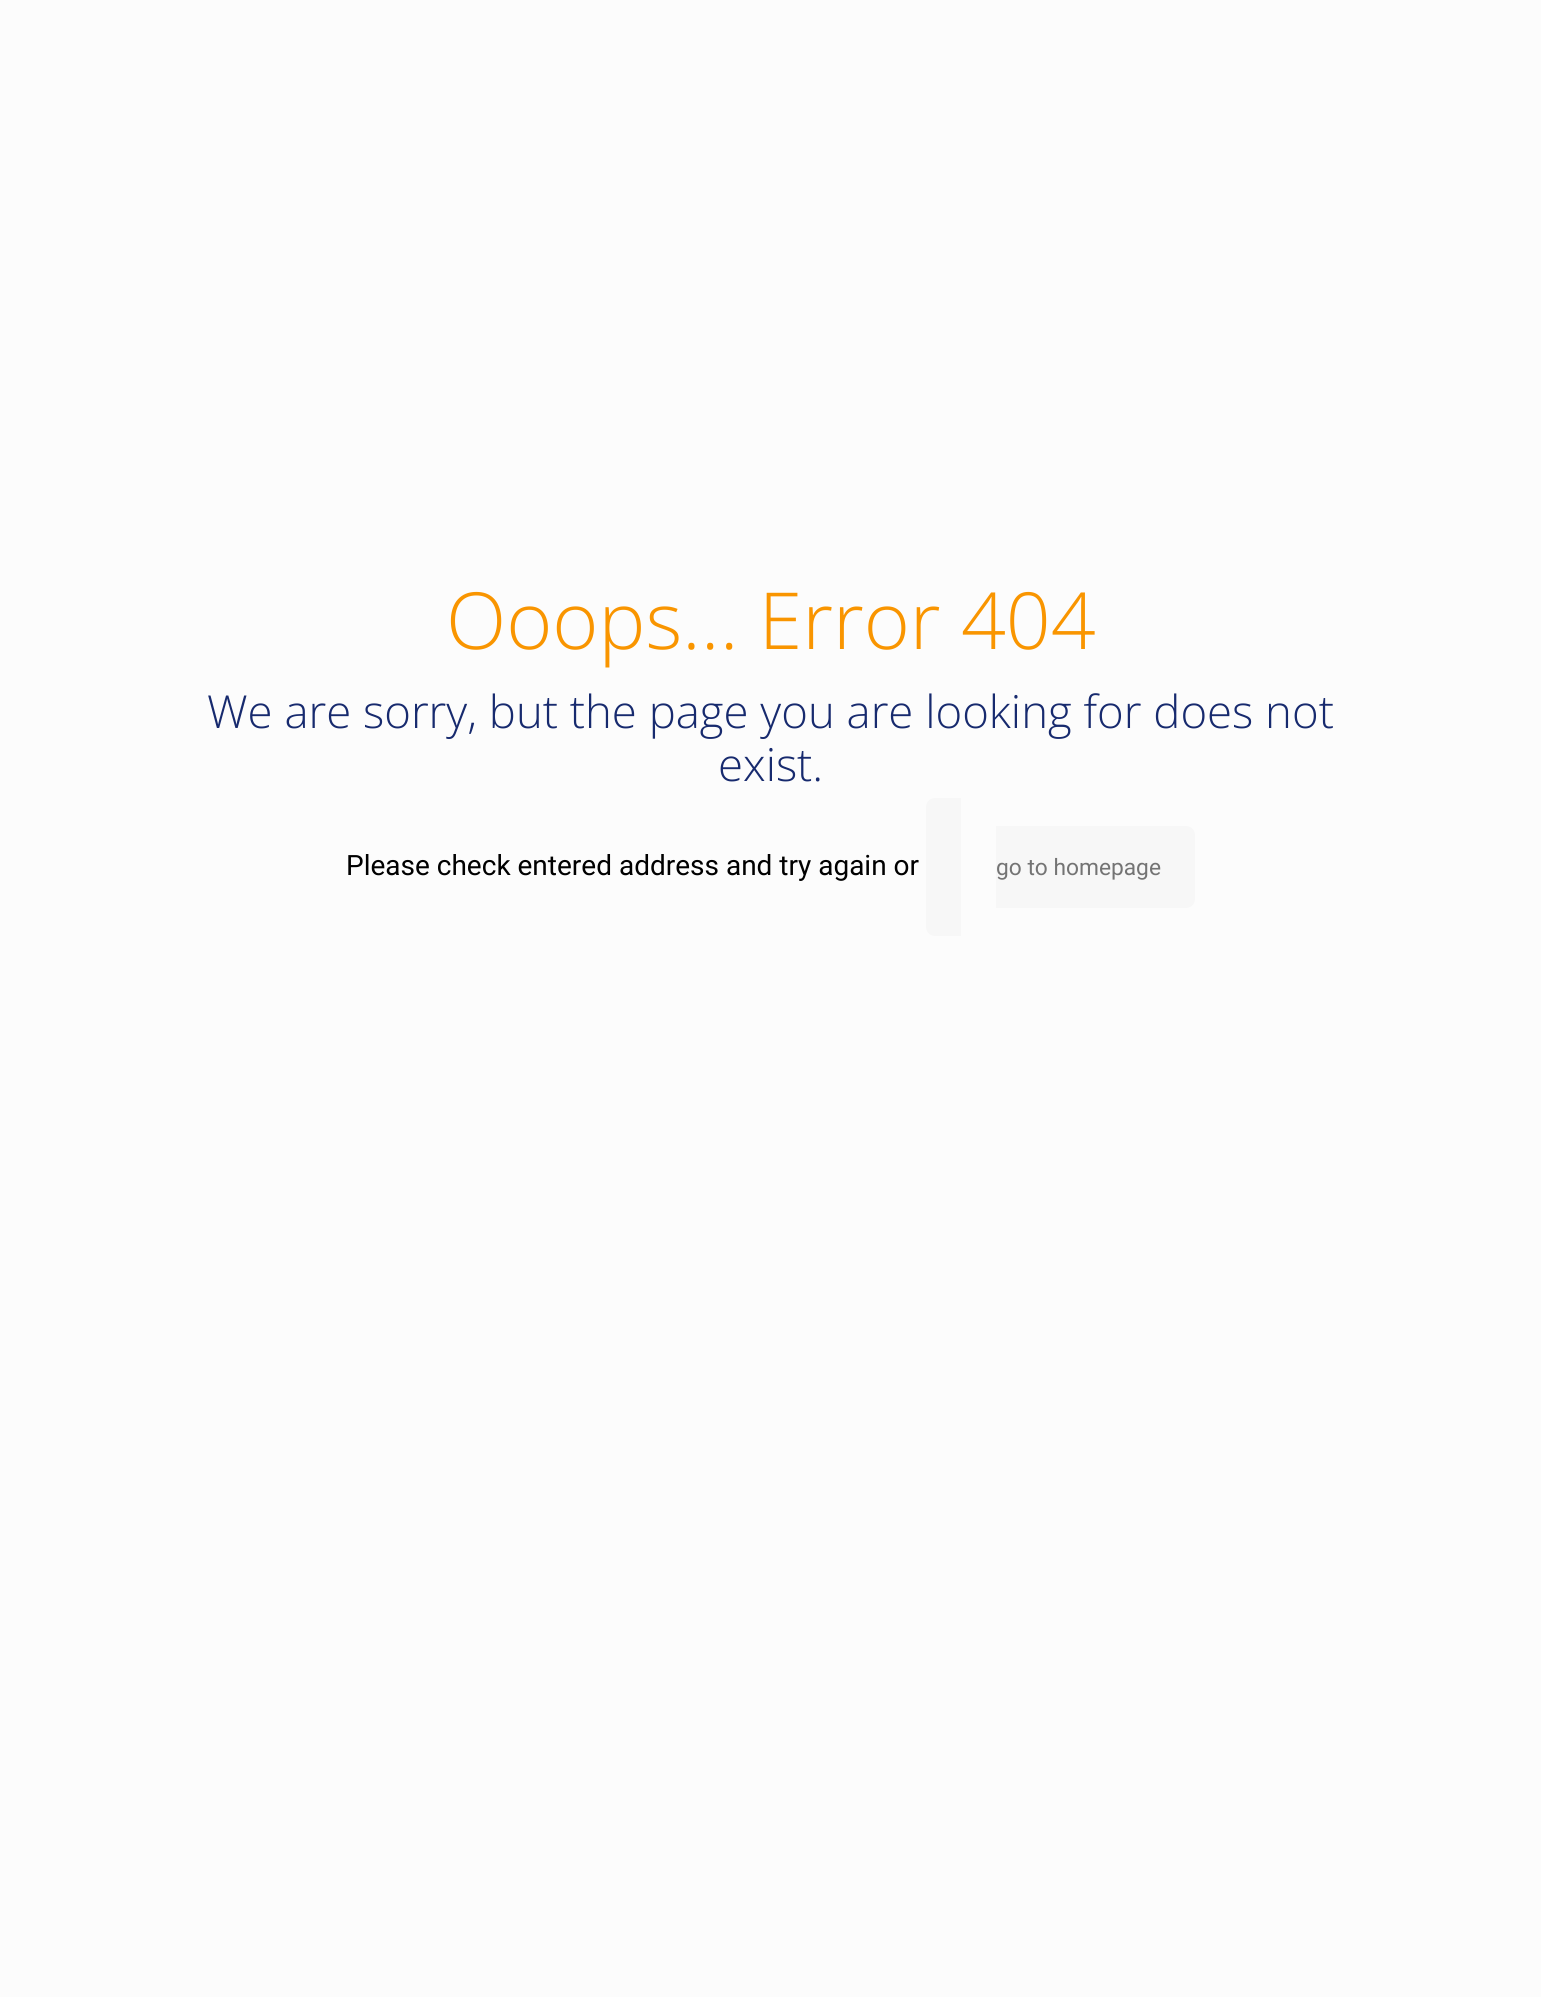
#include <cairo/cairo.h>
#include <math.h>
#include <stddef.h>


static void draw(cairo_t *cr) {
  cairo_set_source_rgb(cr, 252 / 255.0, 252 / 255.0, 252 / 255.0);
  cairo_paint(cr);
  cairo_set_source_rgb(cr, 247 / 255.0, 247 / 255.0, 247 / 255.0);
  cairo_new_path(cr);
  cairo_move_to(cr, 935, 798);
  cairo_line_to(cr, 961, 798);
  cairo_line_to(cr, 961, 936);
  cairo_line_to(cr, 935, 936);
  cairo_curve_to(cr, 930, 936, 926, 932, 926, 927);
  cairo_line_to(cr, 926, 807);
  cairo_curve_to(cr, 926, 802, 930, 798, 935, 798);
  cairo_close_path(cr);
  cairo_fill(cr);
  cairo_new_path(cr);
  cairo_move_to(cr, 996, 826);
  cairo_line_to(cr, 1186, 826);
  cairo_curve_to(cr, 1191, 826, 1195, 830, 1195, 835);
  cairo_line_to(cr, 1195, 899);
  cairo_curve_to(cr, 1195, 904, 1191, 908, 1186, 908);
  cairo_line_to(cr, 996, 908);
  cairo_close_path(cr);
  cairo_fill(cr);
  cairo_select_font_face(cr, "Open Sans Light", CAIRO_FONT_SLANT_NORMAL, CAIRO_FONT_WEIGHT_NORMAL);
  cairo_set_font_size(cr, 78.75);
  cairo_set_source_rgb(cr, 249 / 255.0, 149 / 255.0, 0);
  cairo_move_to(cr, 446, 649);
  cairo_show_text(cr, "Ooops... Error 404");
  cairo_set_font_size(cr, 45.5);
  cairo_set_source_rgb(cr, 23 / 255.0, 42 / 255.0, 110 / 255.0);
  cairo_move_to(cr, 207, 728);
  cairo_show_text(cr, "We are sorry, but the page you are looking for does not");
  cairo_move_to(cr, 718, 781);
  cairo_show_text(cr, "exist.");
  cairo_select_font_face(cr, "Roboto", CAIRO_FONT_SLANT_NORMAL, CAIRO_FONT_WEIGHT_NORMAL);
  cairo_set_font_size(cr, 28);
  cairo_set_source_rgb(cr, 0, 0, 0);
  cairo_move_to(cr, 346, 875);
  cairo_show_text(cr, "Please check entered address and try again or");
  cairo_set_font_size(cr, 22.75);
  cairo_set_source_rgb(cr, 116 / 255.0, 116 / 255.0, 116 / 255.0);
  cairo_move_to(cr, 996, 875);
  cairo_show_text(cr, "go to homepage");
}

int main(void) {
  cairo_surface_t *surface = cairo_image_surface_create(CAIRO_FORMAT_RGB24, 1541, 1997);
  cairo_t *cr = cairo_create(surface);
  cairo_font_options_t *options = cairo_font_options_create();
  cairo_font_options_set_hint_metrics(options, CAIRO_HINT_METRICS_OFF);
  cairo_font_options_set_hint_style(options, CAIRO_HINT_STYLE_NONE);
  cairo_set_font_options(cr, options);
  cairo_set_miter_limit(cr, 4);
  draw(cr);
  cairo_surface_write_to_png(surface, "out.png");
  cairo_font_options_destroy(options);
  cairo_destroy(cr);
  cairo_surface_destroy(surface);
  return 0;
}
